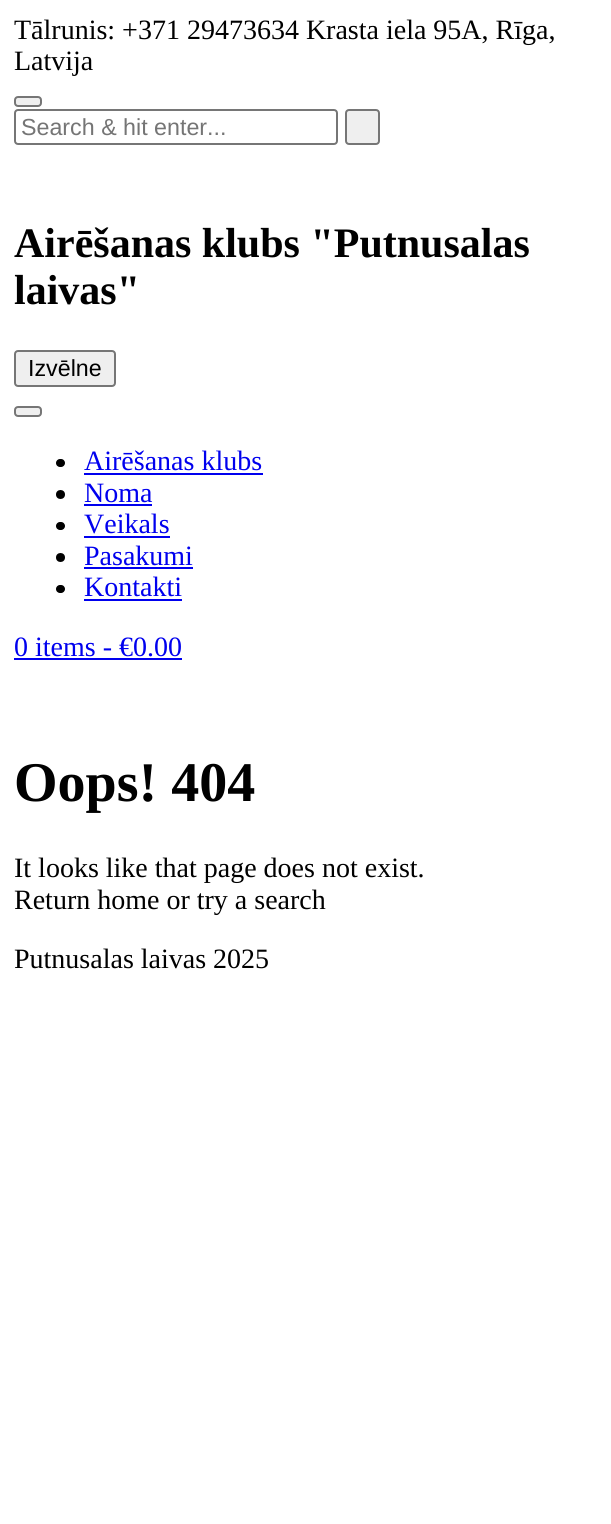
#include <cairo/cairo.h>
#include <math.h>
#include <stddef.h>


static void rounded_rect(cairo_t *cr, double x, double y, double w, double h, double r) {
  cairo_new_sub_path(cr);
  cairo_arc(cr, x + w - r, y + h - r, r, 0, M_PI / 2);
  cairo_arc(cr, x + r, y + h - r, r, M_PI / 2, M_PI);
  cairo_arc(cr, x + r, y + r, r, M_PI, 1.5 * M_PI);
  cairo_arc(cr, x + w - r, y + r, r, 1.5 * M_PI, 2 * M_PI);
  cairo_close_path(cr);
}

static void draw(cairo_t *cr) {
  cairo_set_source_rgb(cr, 1, 1, 1);
  cairo_paint(cr);
  cairo_set_source_rgb(cr, 239 / 255.0, 239 / 255.0, 239 / 255.0);
  rounded_rect(cr, 15, 97, 26, 9, 3);
  cairo_fill_preserve(cr);
  cairo_set_source_rgb(cr, 118 / 255.0, 118 / 255.0, 118 / 255.0);
  cairo_stroke(cr);
  rounded_rect(cr, 15, 110, 322, 34, 3);
  cairo_stroke(cr);
  cairo_set_source_rgb(cr, 239 / 255.0, 239 / 255.0, 239 / 255.0);
  rounded_rect(cr, 346, 110, 33, 34, 3);
  cairo_fill_preserve(cr);
  cairo_set_source_rgb(cr, 118 / 255.0, 118 / 255.0, 118 / 255.0);
  cairo_stroke(cr);
  cairo_set_source_rgb(cr, 239 / 255.0, 239 / 255.0, 239 / 255.0);
  rounded_rect(cr, 15, 351, 100, 35, 3);
  cairo_fill_preserve(cr);
  cairo_set_source_rgb(cr, 118 / 255.0, 118 / 255.0, 118 / 255.0);
  cairo_stroke(cr);
  cairo_set_source_rgb(cr, 239 / 255.0, 239 / 255.0, 239 / 255.0);
  rounded_rect(cr, 15, 407, 26, 9, 3);
  cairo_fill_preserve(cr);
  cairo_set_source_rgb(cr, 118 / 255.0, 118 / 255.0, 118 / 255.0);
  cairo_stroke(cr);
  cairo_set_source_rgb(cr, 0, 0, 0);
  rounded_rect(cr, 56, 459, 9, 8, 4);
  cairo_fill(cr);
  cairo_set_source_rgb(cr, 0, 0, 238 / 255.0);
  cairo_rectangle(cr, 84, 473, 179, 2);
  cairo_fill(cr);
  cairo_set_source_rgb(cr, 0, 0, 0);
  cairo_arc(cr, 60.5, 494.5, 4.5, 0, 2 * M_PI);
  cairo_fill(cr);
  cairo_set_source_rgb(cr, 0, 0, 238 / 255.0);
  cairo_rectangle(cr, 84, 504, 68, 2);
  cairo_fill(cr);
  cairo_set_source_rgb(cr, 0, 0, 0);
  rounded_rect(cr, 56, 522, 9, 8, 4);
  cairo_fill(cr);
  cairo_set_source_rgb(cr, 0, 0, 238 / 255.0);
  cairo_rectangle(cr, 84, 536, 86, 2);
  cairo_fill(cr);
  cairo_set_source_rgb(cr, 0, 0, 0);
  cairo_arc(cr, 60.5, 557.5, 4.5, 0, 2 * M_PI);
  cairo_fill(cr);
  cairo_set_source_rgb(cr, 0, 0, 238 / 255.0);
  cairo_rectangle(cr, 84, 567, 109, 2);
  cairo_fill(cr);
  cairo_set_source_rgb(cr, 0, 0, 0);
  rounded_rect(cr, 56, 585, 9, 8, 4);
  cairo_fill(cr);
  cairo_set_source_rgb(cr, 0, 0, 238 / 255.0);
  cairo_rectangle(cr, 84, 599, 98, 2);
  cairo_fill(cr);
  cairo_rectangle(cr, 14, 658, 168, 2);
  cairo_fill(cr);
  cairo_select_font_face(cr, "Liberation Serif", CAIRO_FONT_SLANT_NORMAL, CAIRO_FONT_WEIGHT_NORMAL);
  cairo_set_font_size(cr, 28);
  cairo_set_source_rgb(cr, 0, 0, 0);
  cairo_move_to(cr, 14, 39);
  cairo_show_text(cr, "Tālrunis: +371 29473634 Krasta iela 95A, Rīga,");
  cairo_move_to(cr, 14, 70);
  cairo_show_text(cr, "Latvija");
  cairo_select_font_face(cr, "Liberation Sans", CAIRO_FONT_SLANT_NORMAL, CAIRO_FONT_WEIGHT_NORMAL);
  cairo_set_font_size(cr, 23.25);
  cairo_set_source_rgb(cr, 117 / 255.0, 117 / 255.0, 117 / 255.0);
  cairo_move_to(cr, 21, 135);
  cairo_show_text(cr, "Search & hit enter...");
  cairo_select_font_face(cr, "Liberation Serif", CAIRO_FONT_SLANT_NORMAL, CAIRO_FONT_WEIGHT_BOLD);
  cairo_set_font_size(cr, 42);
  cairo_set_source_rgb(cr, 0, 0, 0);
  cairo_move_to(cr, 14, 257);
  cairo_show_text(cr, "Airēšanas klubs \"Putnusalas");
  cairo_move_to(cr, 14, 304);
  cairo_show_text(cr, "laivas\"");
  cairo_select_font_face(cr, "Liberation Sans", CAIRO_FONT_SLANT_NORMAL, CAIRO_FONT_WEIGHT_NORMAL);
  cairo_set_font_size(cr, 23.25);
  cairo_move_to(cr, 28, 376);
  cairo_show_text(cr, "Izvēlne");
  cairo_select_font_face(cr, "Liberation Serif", CAIRO_FONT_SLANT_NORMAL, CAIRO_FONT_WEIGHT_NORMAL);
  cairo_set_font_size(cr, 28);
  cairo_set_source_rgb(cr, 0, 0, 238 / 255.0);
  cairo_move_to(cr, 84, 470);
  cairo_show_text(cr, "Airēšanas klubs");
  cairo_move_to(cr, 84, 502);
  cairo_show_text(cr, "Noma");
  cairo_move_to(cr, 84, 533);
  cairo_show_text(cr, "Veikals");
  cairo_move_to(cr, 84, 565);
  cairo_show_text(cr, "Pasakumi");
  cairo_move_to(cr, 84, 596);
  cairo_show_text(cr, "Kontakti");
  cairo_move_to(cr, 14, 656);
  cairo_show_text(cr, "0 items - €0.00");
  cairo_select_font_face(cr, "Liberation Serif", CAIRO_FONT_SLANT_NORMAL, CAIRO_FONT_WEIGHT_BOLD);
  cairo_set_font_size(cr, 56);
  cairo_set_source_rgb(cr, 0, 0, 0);
  cairo_move_to(cr, 14, 801);
  cairo_show_text(cr, "Oops! 404");
  cairo_select_font_face(cr, "Liberation Serif", CAIRO_FONT_SLANT_NORMAL, CAIRO_FONT_WEIGHT_NORMAL);
  cairo_set_font_size(cr, 28);
  cairo_move_to(cr, 14, 877);
  cairo_show_text(cr, "It looks like that page does not exist.");
  cairo_move_to(cr, 14, 909);
  cairo_show_text(cr, "Return home or try a search");
  cairo_move_to(cr, 14, 968);
  cairo_show_text(cr, "Putnusalas laivas 2025");
}

int main(void) {
  cairo_surface_t *surface = cairo_image_surface_create(CAIRO_FORMAT_RGB24, 611, 1524);
  cairo_t *cr = cairo_create(surface);
  cairo_font_options_t *options = cairo_font_options_create();
  cairo_font_options_set_hint_metrics(options, CAIRO_HINT_METRICS_OFF);
  cairo_font_options_set_hint_style(options, CAIRO_HINT_STYLE_NONE);
  cairo_set_font_options(cr, options);
  cairo_set_miter_limit(cr, 4);
  draw(cr);
  cairo_surface_write_to_png(surface, "out.png");
  cairo_font_options_destroy(options);
  cairo_destroy(cr);
  cairo_surface_destroy(surface);
  return 0;
}
